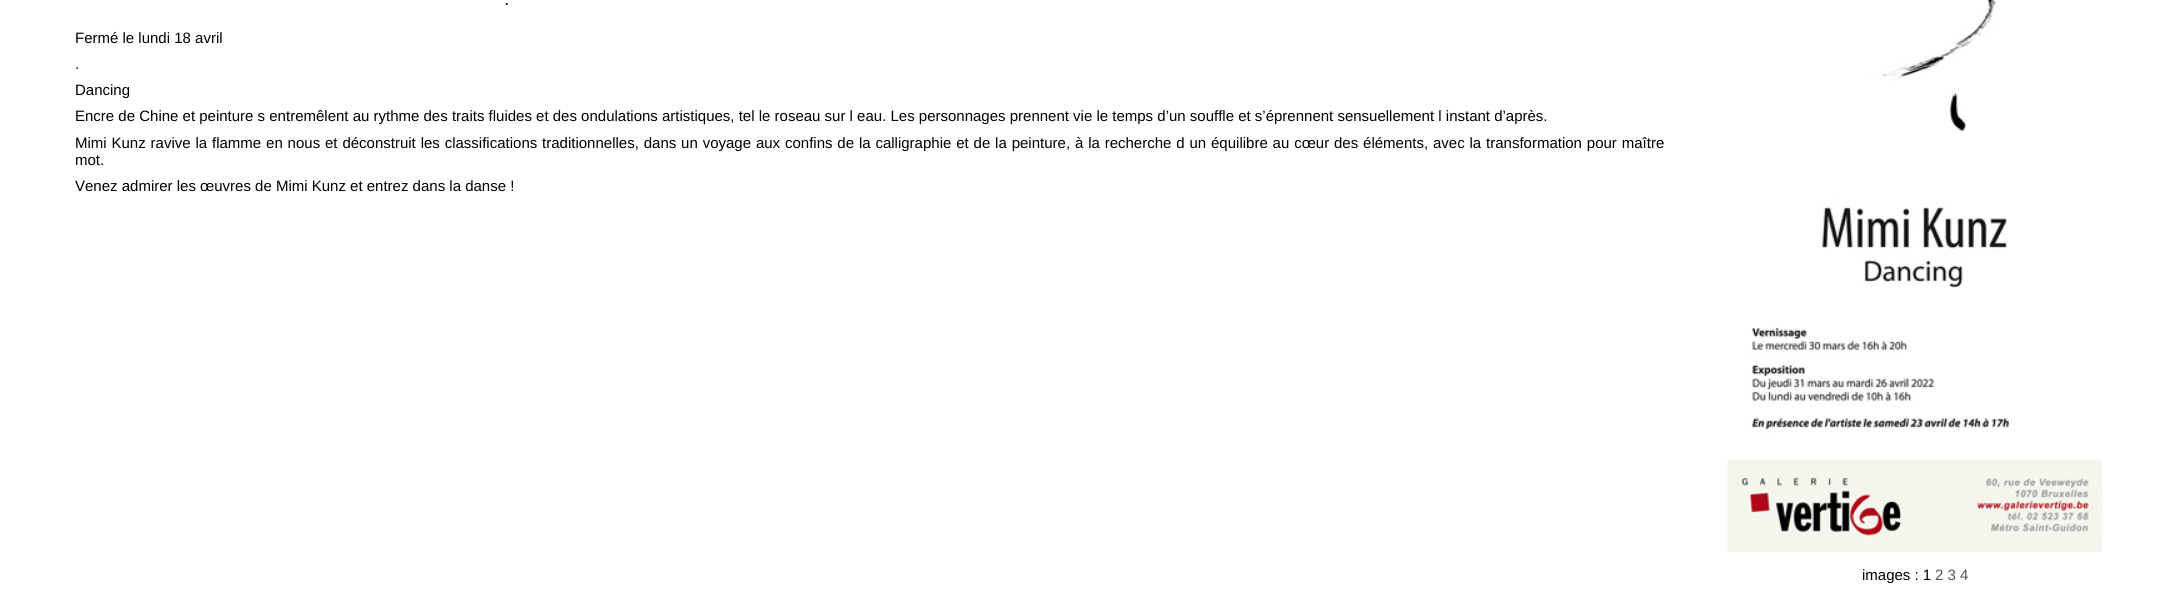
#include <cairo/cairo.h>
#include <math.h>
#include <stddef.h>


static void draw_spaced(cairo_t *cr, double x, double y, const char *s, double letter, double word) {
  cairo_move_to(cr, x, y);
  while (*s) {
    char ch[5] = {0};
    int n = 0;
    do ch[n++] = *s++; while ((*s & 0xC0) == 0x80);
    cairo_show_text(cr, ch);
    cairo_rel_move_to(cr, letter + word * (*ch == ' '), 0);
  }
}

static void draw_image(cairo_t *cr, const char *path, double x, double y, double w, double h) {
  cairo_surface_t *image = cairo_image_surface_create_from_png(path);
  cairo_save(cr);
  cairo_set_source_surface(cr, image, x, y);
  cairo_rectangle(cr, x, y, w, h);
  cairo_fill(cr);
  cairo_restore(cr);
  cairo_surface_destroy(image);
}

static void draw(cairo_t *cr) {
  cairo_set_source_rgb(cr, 1, 1, 1);
  cairo_paint(cr);
  draw_image(cr, "images/1.png", 1727, 0, 376, 552);
  cairo_select_font_face(cr, "Liberation Sans", CAIRO_FONT_SLANT_ITALIC, CAIRO_FONT_WEIGHT_NORMAL);
  cairo_set_font_size(cr, 18);
  cairo_set_source_rgb(cr, 0, 0, 0);
  cairo_move_to(cr, 505, 5);
  cairo_show_text(cr, ".");
  cairo_select_font_face(cr, "Liberation Sans", CAIRO_FONT_SLANT_NORMAL, CAIRO_FONT_WEIGHT_NORMAL);
  cairo_set_font_size(cr, 15);
  cairo_move_to(cr, 75, 43);
  cairo_show_text(cr, "Fermé le lundi 18 avril");
  cairo_move_to(cr, 75, 69);
  cairo_show_text(cr, ".");
  cairo_move_to(cr, 75, 95);
  cairo_show_text(cr, "Dancing");
  cairo_move_to(cr, 75, 121);
  cairo_show_text(cr, "Encre de Chine et peinture s entremêlent au rythme des traits fluides et des ondulations artistiques, tel le roseau sur l eau. Les personnages prennent vie le temps d’un souffle et s’éprennent sensuellement l instant d’après.");
  draw_spaced(cr, 75, 148, "Mimi Kunz ravive la flamme en nous et déconstruit les classifications traditionnelles, dans un voyage aux confins de la calligraphie et de la peinture, à la recherche d un équilibre au cœur des éléments, avec la transformation pour maître", 0, 0.7);
  cairo_move_to(cr, 75, 165);
  cairo_show_text(cr, "mot.");
  cairo_move_to(cr, 75, 191);
  cairo_show_text(cr, "Venez admirer les œuvres de Mimi Kunz et entrez dans la danse !");
  cairo_move_to(cr, 1862, 580);
  cairo_show_text(cr, "images : 1");
  cairo_set_source_rgb(cr, 85 / 255.0, 85 / 255.0, 85 / 255.0);
  cairo_move_to(cr, 1935, 580);
  cairo_show_text(cr, "2 3 4");
}

int main(void) {
  cairo_surface_t *surface = cairo_image_surface_create(CAIRO_FORMAT_RGB24, 2177, 592);
  cairo_t *cr = cairo_create(surface);
  cairo_font_options_t *options = cairo_font_options_create();
  cairo_font_options_set_hint_metrics(options, CAIRO_HINT_METRICS_OFF);
  cairo_font_options_set_hint_style(options, CAIRO_HINT_STYLE_NONE);
  cairo_set_font_options(cr, options);
  cairo_set_miter_limit(cr, 4);
  draw(cr);
  cairo_surface_write_to_png(surface, "out.png");
  cairo_font_options_destroy(options);
  cairo_destroy(cr);
  cairo_surface_destroy(surface);
  return 0;
}
